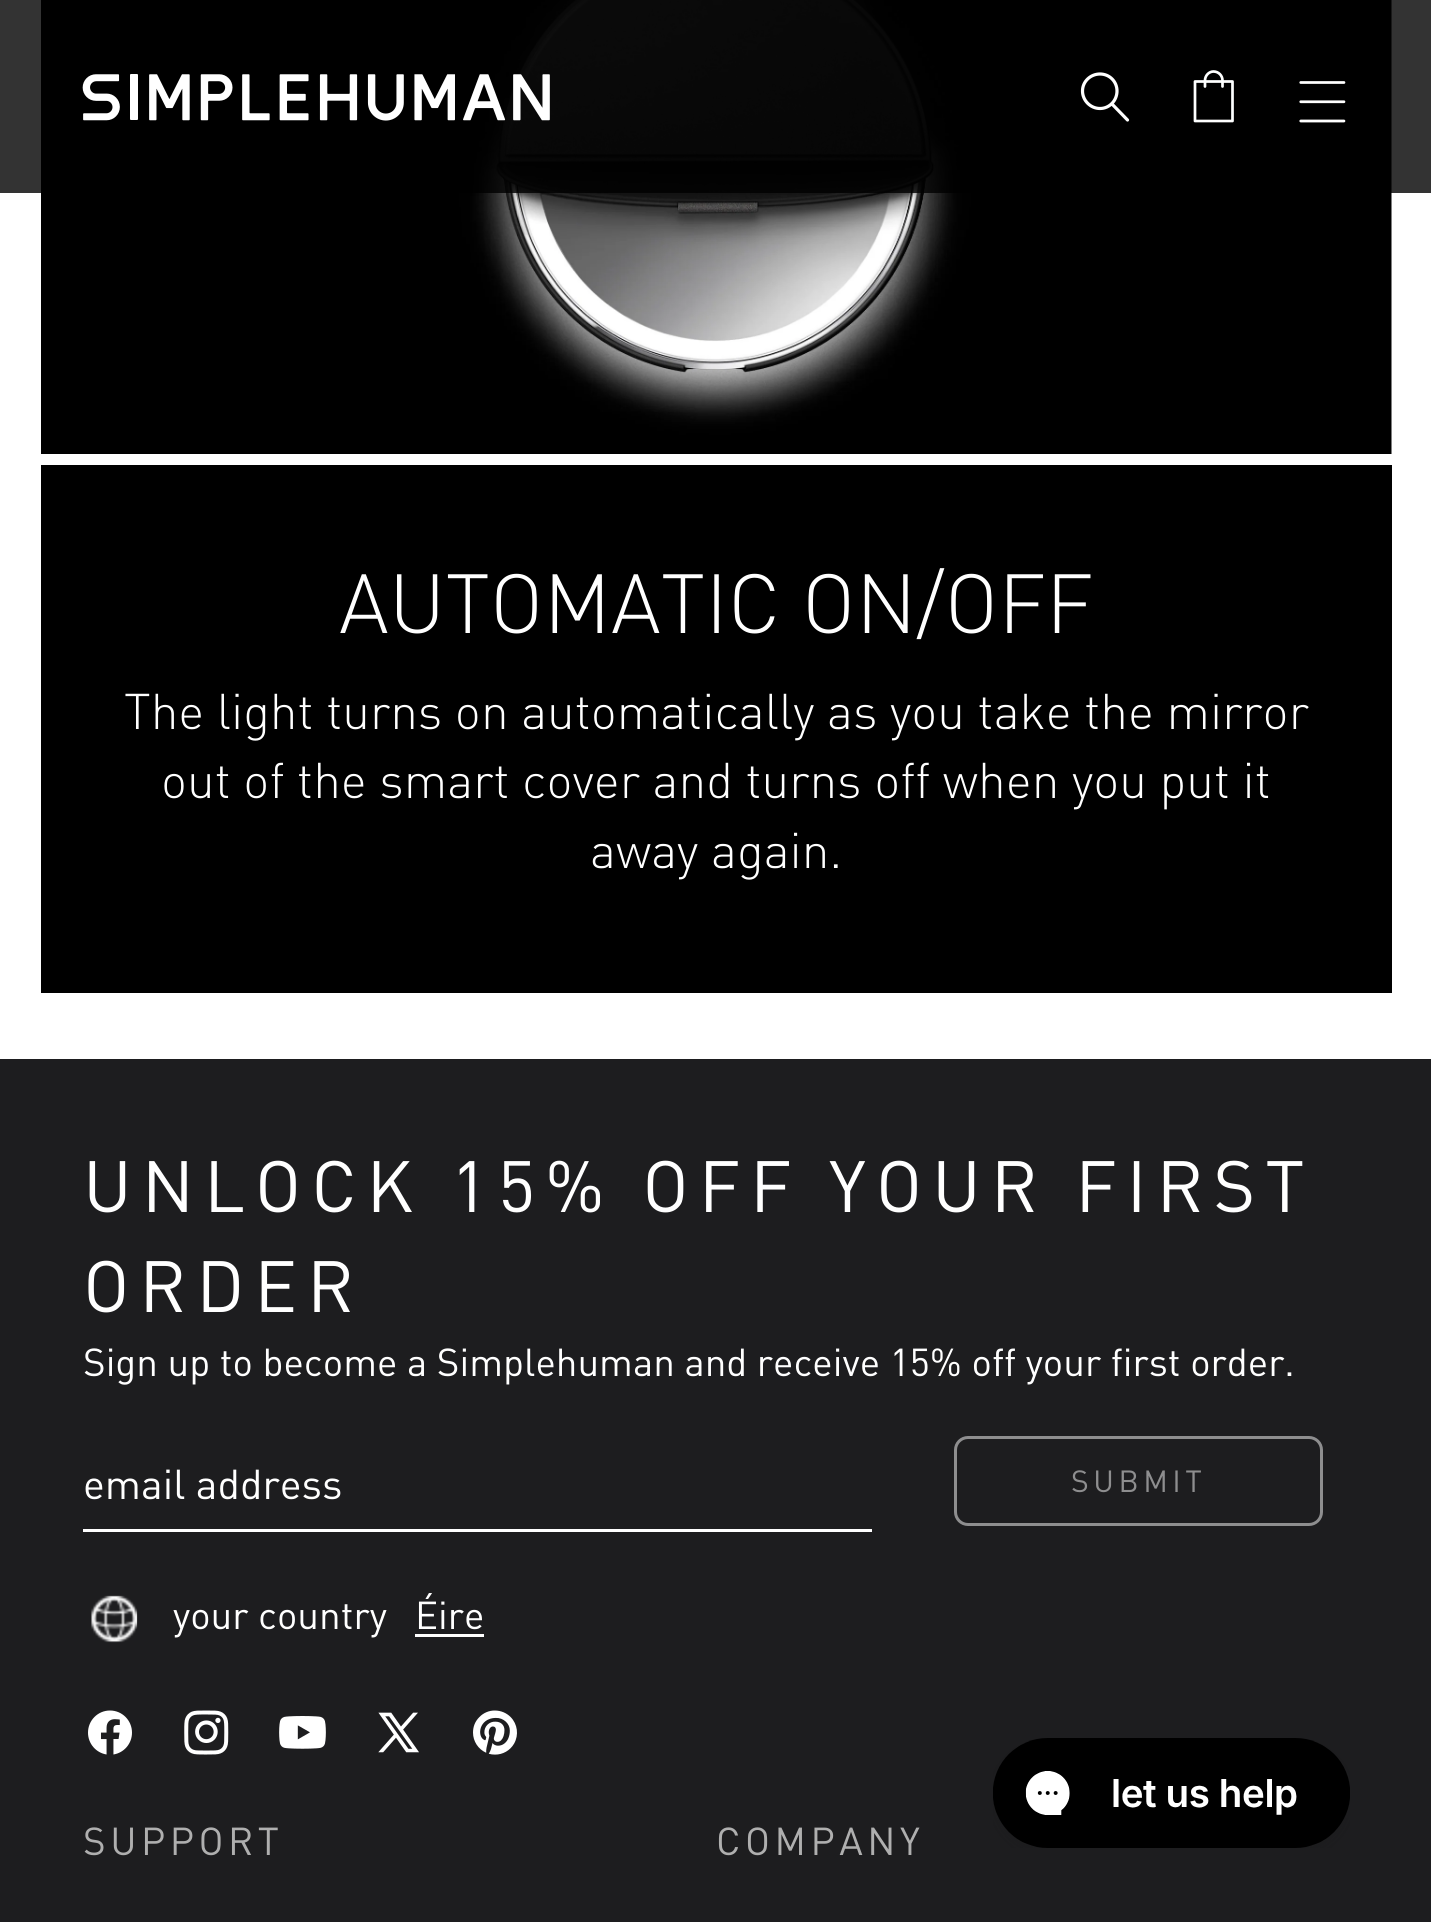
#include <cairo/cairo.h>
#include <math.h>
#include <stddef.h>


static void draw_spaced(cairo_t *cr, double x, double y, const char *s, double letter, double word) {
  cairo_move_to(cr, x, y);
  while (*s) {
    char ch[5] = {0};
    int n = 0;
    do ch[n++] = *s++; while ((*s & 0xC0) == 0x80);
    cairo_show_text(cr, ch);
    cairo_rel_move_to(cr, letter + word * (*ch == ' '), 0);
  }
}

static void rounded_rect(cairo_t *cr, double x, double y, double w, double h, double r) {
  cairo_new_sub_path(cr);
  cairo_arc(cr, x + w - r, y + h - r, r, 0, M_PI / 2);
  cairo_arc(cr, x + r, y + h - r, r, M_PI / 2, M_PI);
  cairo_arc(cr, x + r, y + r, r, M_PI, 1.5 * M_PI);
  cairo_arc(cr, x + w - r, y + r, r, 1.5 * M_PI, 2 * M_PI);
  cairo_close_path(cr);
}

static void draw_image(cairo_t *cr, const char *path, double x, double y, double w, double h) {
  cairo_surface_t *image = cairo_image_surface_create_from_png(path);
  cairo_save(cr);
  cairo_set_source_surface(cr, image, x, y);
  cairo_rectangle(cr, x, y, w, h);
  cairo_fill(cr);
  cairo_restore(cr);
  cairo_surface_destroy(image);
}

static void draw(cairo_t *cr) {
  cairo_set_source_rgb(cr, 1, 1, 1);
  cairo_paint(cr);
  draw_image(cr, "images/3.png", 41, 0, 1351, 454);
  cairo_set_source_rgba(cr, 0, 0, 0, 0.8);
  cairo_rectangle(cr, 0, 0, 1431, 193);
  cairo_fill(cr);
  draw_image(cr, "images/1.png", 82, 74, 468, 47);
  cairo_new_path(cr);
  cairo_move_to(cr, 1127.5, 120);
  cairo_line_to(cr, 1112, 104);
  cairo_move_to(cr, 1100, 108.5);
  cairo_curve_to(cr, 1109.5, 108.5, 1117, 100.5, 1117, 91);
  cairo_curve_to(cr, 1117, 81.5, 1109.5, 74, 1100, 74);
  cairo_curve_to(cr, 1090.5, 74, 1082.5, 81.5, 1082.5, 91);
  cairo_curve_to(cr, 1082.5, 100.5, 1090.5, 108.5, 1100, 108.5);
  cairo_close_path(cr);
  cairo_set_source_rgb(cr, 1, 1, 1);
  cairo_set_line_width(cr, 3.2);
  cairo_set_line_cap(cr, CAIRO_LINE_CAP_ROUND);
  cairo_set_line_join(cr, CAIRO_LINE_JOIN_ROUND);
  cairo_stroke(cr);
  cairo_new_path(cr);
  cairo_move_to(cr, 1232.5, 81.5);
  cairo_line_to(cr, 1195, 81.5);
  cairo_line_to(cr, 1195, 121);
  cairo_line_to(cr, 1232.5, 121);
  cairo_close_path(cr);
  cairo_move_to(cr, 1222.5, 86.5);
  cairo_line_to(cr, 1222.5, 80.5);
  cairo_curve_to(cr, 1222.5, 75.5, 1218.5, 71.5, 1213.5, 71.5);
  cairo_curve_to(cr, 1209, 71.5, 1205, 75.5, 1205, 80.5);
  cairo_line_to(cr, 1205, 86.5);
  cairo_set_source_rgb(cr, 254 / 255.0, 1, 1);
  cairo_set_line_width(cr, 2.7);
  cairo_stroke(cr);
  draw_image(cr, "images/2.png", 1299, 81, 47, 42);
  cairo_set_source_rgb(cr, 0, 0, 0);
  cairo_rectangle(cr, 41, 465, 1351, 528);
  cairo_fill(cr);
  cairo_set_source_rgb(cr, 29 / 255.0, 29 / 255.0, 31 / 255.0);
  cairo_rectangle(cr, 0, 1059, 1431, 863);
  cairo_fill(cr);
  cairo_set_source_rgb(cr, 1, 1, 1);
  cairo_rectangle(cr, 83, 1529, 789, 3);
  cairo_fill(cr);
  rounded_rect(cr, 955.5, 1437.5, 366, 87, 12.5);
  cairo_set_source_rgb(cr, 142 / 255.0, 142 / 255.0, 143 / 255.0);
  cairo_set_line_width(cr, 3);
  cairo_set_line_cap(cr, CAIRO_LINE_CAP_BUTT);
  cairo_set_line_join(cr, CAIRO_LINE_JOIN_MITER);
  cairo_stroke(cr);
  draw_image(cr, "images/4.png", 91, 1595, 47, 48);
  cairo_set_source_rgb(cr, 1, 1, 1);
  cairo_rectangle(cr, 415, 1634, 69, 3);
  cairo_fill(cr);
  draw_image(cr, "images/5.png", 88, 1710, 44, 45);
  draw_image(cr, "images/6.png", 184, 1710, 45, 45);
  draw_image(cr, "images/7.png", 279, 1716, 47, 33);
  draw_image(cr, "images/8.png", 378, 1712, 41, 41);
  draw_image(cr, "images/9.png", 473, 1710, 44, 45);
  draw_image(cr, "images/10.png", 993, 1738, 357, 110);
  cairo_select_font_face(cr, "DIN Light", CAIRO_FONT_SLANT_NORMAL, CAIRO_FONT_WEIGHT_NORMAL);
  cairo_set_font_size(cr, 82.5);
  cairo_move_to(cr, 339, 633);
  cairo_show_text(cr, "AUTOMATIC ON/OFF");
  cairo_set_font_size(cr, 49.5);
  cairo_move_to(cr, 124, 729);
  cairo_show_text(cr, "The light turns on automatically as you take the mirror");
  cairo_move_to(cr, 161, 798);
  cairo_show_text(cr, "out of the smart cover and turns off when you put it");
  cairo_move_to(cr, 590, 868);
  cairo_show_text(cr, "away again.");
  cairo_select_font_face(cr, "DIN", CAIRO_FONT_SLANT_NORMAL, CAIRO_FONT_WEIGHT_NORMAL);
  cairo_set_font_size(cr, 71.5);
  draw_spaced(cr, 83, 1212, "UNLOCK 15% OFF YOUR FIRST", 9.9, 0);
  draw_spaced(cr, 83, 1312, "ORDER", 9.9, 0);
  cairo_set_font_size(cr, 38.5);
  cairo_move_to(cr, 83, 1376);
  cairo_show_text(cr, "Sign up to become a Simplehuman and receive 15% off your first order.");
  cairo_set_font_size(cr, 41.25);
  cairo_move_to(cr, 83, 1499);
  cairo_show_text(cr, "email address");
  cairo_set_font_size(cr, 30.25);
  cairo_set_source_rgb(cr, 142 / 255.0, 142 / 255.0, 143 / 255.0);
  draw_spaced(cr, 1071, 1492, "SUBMIT", 4.5, 0);
  cairo_set_font_size(cr, 38.5);
  cairo_set_source_rgb(cr, 1, 1, 1);
  cairo_move_to(cr, 173, 1629);
  cairo_show_text(cr, "your country");
  cairo_move_to(cr, 415, 1629);
  cairo_show_text(cr, "Éire");
  cairo_set_source_rgb(cr, 175 / 255.0, 175 / 255.0, 175 / 255.0);
  draw_spaced(cr, 83, 1855, "SUPPORT", 4.5, 0);
  draw_spaced(cr, 716, 1855, "COMPANY", 4.5, 0);
}

int main(void) {
  cairo_surface_t *surface = cairo_image_surface_create(CAIRO_FORMAT_RGB24, 1431, 1922);
  cairo_t *cr = cairo_create(surface);
  cairo_font_options_t *options = cairo_font_options_create();
  cairo_font_options_set_hint_metrics(options, CAIRO_HINT_METRICS_OFF);
  cairo_font_options_set_hint_style(options, CAIRO_HINT_STYLE_NONE);
  cairo_set_font_options(cr, options);
  cairo_set_miter_limit(cr, 4);
  draw(cr);
  cairo_surface_write_to_png(surface, "out.png");
  cairo_font_options_destroy(options);
  cairo_destroy(cr);
  cairo_surface_destroy(surface);
  return 0;
}
